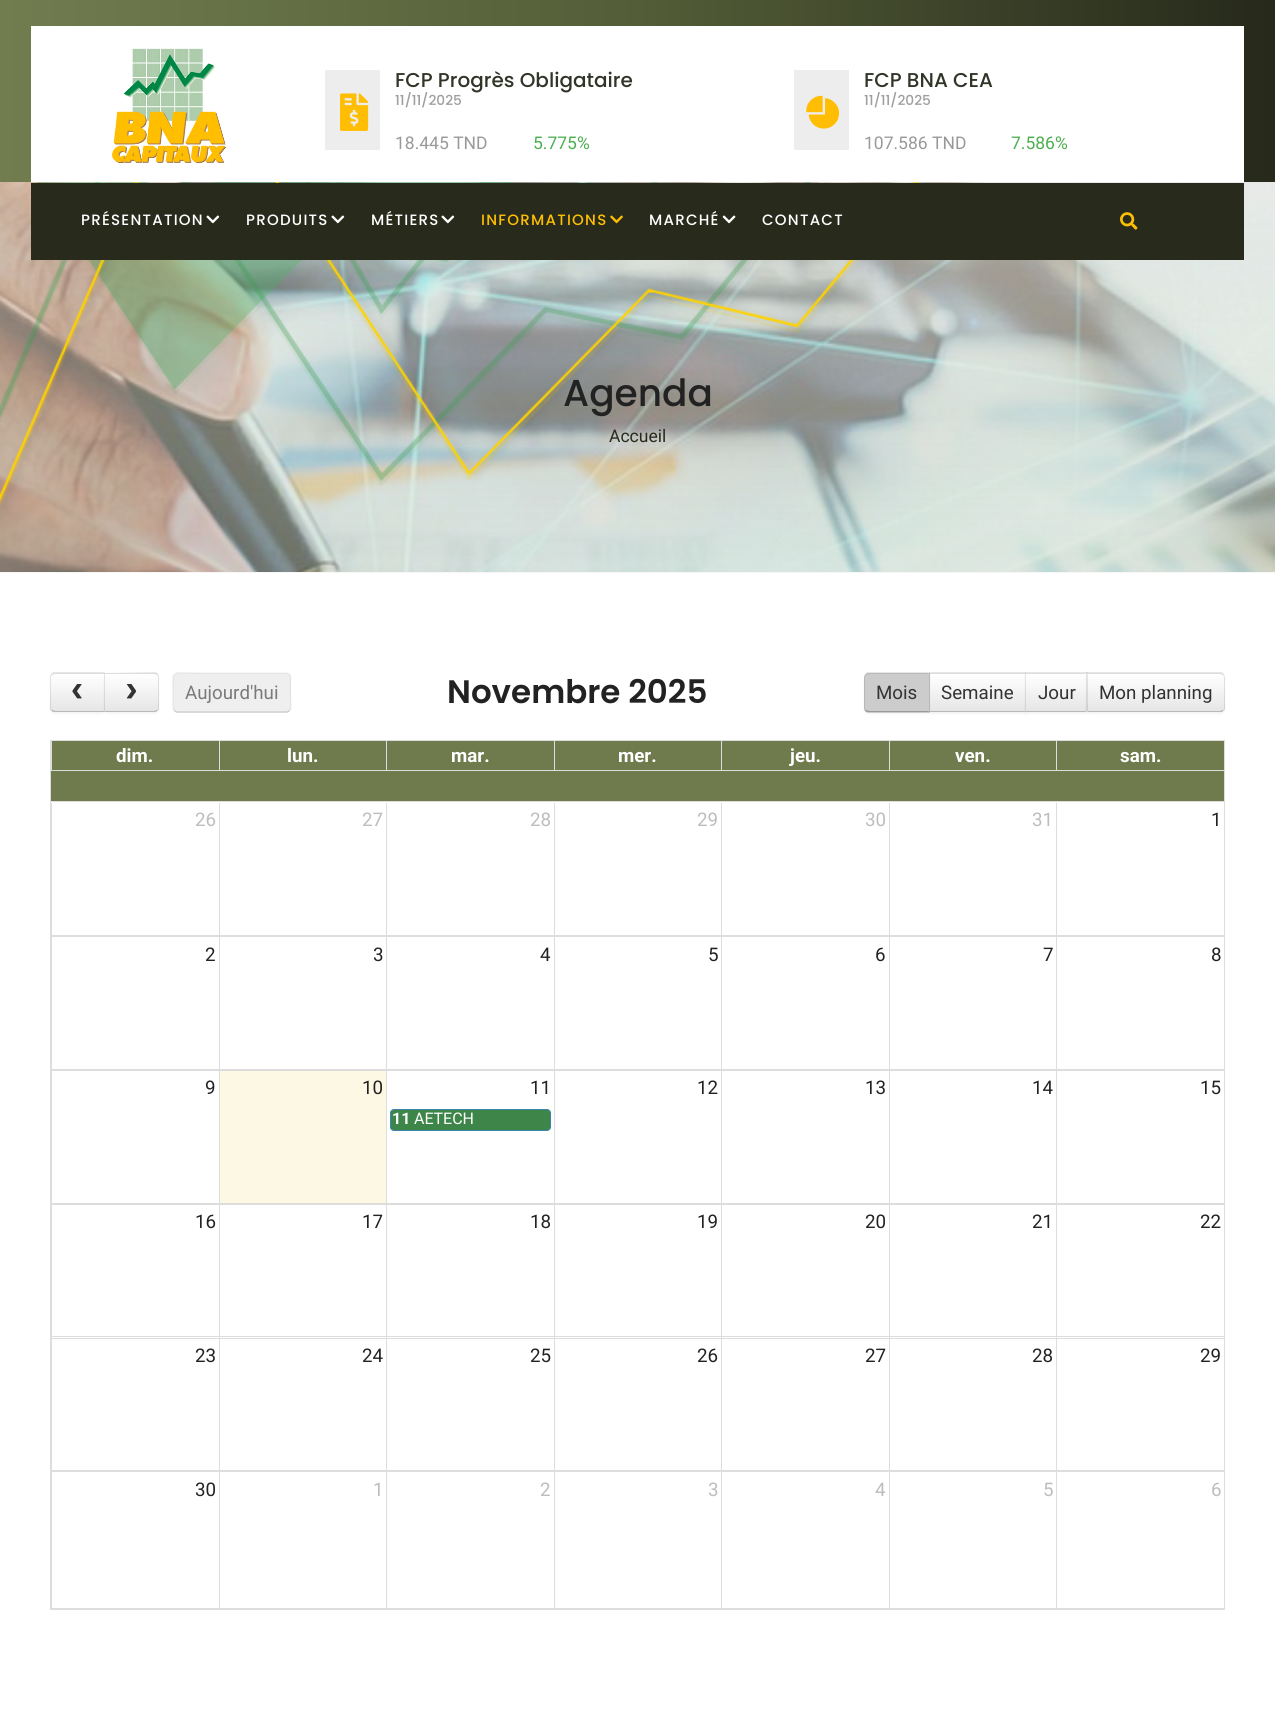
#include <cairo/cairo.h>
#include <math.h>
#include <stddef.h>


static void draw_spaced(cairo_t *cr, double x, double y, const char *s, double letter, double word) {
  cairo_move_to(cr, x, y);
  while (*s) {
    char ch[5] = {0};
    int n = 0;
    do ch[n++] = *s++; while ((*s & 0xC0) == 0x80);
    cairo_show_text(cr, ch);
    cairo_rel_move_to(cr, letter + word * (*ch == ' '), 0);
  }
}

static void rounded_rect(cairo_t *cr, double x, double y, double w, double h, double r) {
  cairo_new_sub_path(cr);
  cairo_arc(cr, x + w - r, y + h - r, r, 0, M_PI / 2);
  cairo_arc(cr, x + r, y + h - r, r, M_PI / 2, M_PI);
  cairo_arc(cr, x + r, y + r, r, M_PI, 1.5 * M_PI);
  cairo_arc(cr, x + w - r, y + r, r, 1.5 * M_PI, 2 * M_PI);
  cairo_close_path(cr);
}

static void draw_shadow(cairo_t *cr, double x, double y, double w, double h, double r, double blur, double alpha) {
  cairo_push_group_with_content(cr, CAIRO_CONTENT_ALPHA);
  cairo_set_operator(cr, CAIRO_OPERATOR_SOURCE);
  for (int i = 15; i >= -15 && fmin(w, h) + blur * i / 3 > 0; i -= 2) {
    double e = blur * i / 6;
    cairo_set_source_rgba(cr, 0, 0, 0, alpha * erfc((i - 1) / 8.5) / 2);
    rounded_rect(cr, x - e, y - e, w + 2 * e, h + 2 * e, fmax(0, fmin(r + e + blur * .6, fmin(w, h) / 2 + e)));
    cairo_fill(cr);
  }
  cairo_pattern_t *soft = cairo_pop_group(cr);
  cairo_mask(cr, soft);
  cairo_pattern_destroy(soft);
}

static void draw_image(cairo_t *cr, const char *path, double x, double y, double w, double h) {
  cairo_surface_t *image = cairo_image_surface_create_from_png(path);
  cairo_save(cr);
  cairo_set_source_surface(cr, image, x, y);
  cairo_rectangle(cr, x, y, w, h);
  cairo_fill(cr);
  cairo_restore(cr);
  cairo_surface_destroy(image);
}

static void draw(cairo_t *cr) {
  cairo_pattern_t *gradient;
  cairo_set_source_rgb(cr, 1, 1, 1);
  cairo_paint(cr);
  gradient = cairo_pattern_create_linear(0, -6.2, 1275, -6.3);
  cairo_pattern_add_color_stop_rgba(gradient, 0, 113 / 255.0, 125 / 255.0, 79 / 255.0, 1);
  cairo_pattern_add_color_stop_rgba(gradient, 0.5, 83 / 255.0, 93 / 255.0, 55 / 255.0, 1);
  cairo_pattern_add_color_stop_rgba(gradient, 1, 38 / 255.0, 41 / 255.0, 27 / 255.0, 1);
  cairo_set_source(cr, gradient);
  cairo_pattern_destroy(gradient);
  cairo_rectangle(cr, 0, 0, 1275, 26);
  cairo_fill(cr);
  gradient = cairo_pattern_create_linear(0, 104, 1275, 104);
  cairo_pattern_add_color_stop_rgba(gradient, 0, 113 / 255.0, 125 / 255.0, 79 / 255.0, 1);
  cairo_pattern_add_color_stop_rgba(gradient, 0.5, 83 / 255.0, 93 / 255.0, 55 / 255.0, 1);
  cairo_pattern_add_color_stop_rgba(gradient, 1, 38 / 255.0, 41 / 255.0, 27 / 255.0, 1);
  cairo_set_source(cr, gradient);
  cairo_pattern_destroy(gradient);
  cairo_rectangle(cr, 0, 26, 1275, 157);
  cairo_fill(cr);
  cairo_set_source_rgb(cr, 1, 1, 1);
  cairo_rectangle(cr, 31, 26, 1213, 157);
  cairo_fill(cr);
  draw_image(cr, "images/1.png", 112, 48, 114, 115);
  cairo_set_source_rgb(cr, 237 / 255.0, 237 / 255.0, 237 / 255.0);
  cairo_rectangle(cr, 325, 70, 55, 80);
  cairo_fill(cr);
  draw_image(cr, "images/2.png", 340, 93, 29, 38);
  cairo_rectangle(cr, 794, 70, 55, 80);
  cairo_fill(cr);
  draw_image(cr, "images/3.png", 806, 95, 34, 34);
  cairo_set_source_rgb(cr, 246 / 255.0, 246 / 255.0, 246 / 255.0);
  cairo_rectangle(cr, 0, 183, 1275, 390);
  cairo_fill(cr);
  draw_image(cr, "images/8.png", 0, 182, 1275, 390);
  draw_image(cr, "images/9.png", 0, 182, 1275, 390);
  cairo_set_source_rgb(cr, 40 / 255.0, 43 / 255.0, 28 / 255.0);
  cairo_rectangle(cr, 31, 183, 1213, 77);
  cairo_fill(cr);
  draw_image(cr, "images/4.png", 206, 215, 14, 9);
  draw_image(cr, "images/4.png", 331, 215, 14, 9);
  draw_image(cr, "images/4.png", 441, 215, 14, 9);
  draw_image(cr, "images/5.png", 610, 215, 13, 9);
  draw_image(cr, "images/6.png", 722, 215, 14, 9);
  draw_image(cr, "images/7.png", 1120, 212, 18, 18);
  cairo_set_source_rgb(cr, 0, 0, 0);
  draw_shadow(cr, 50, 674, 55, 40, 5, 1, 0.05);
  cairo_set_source_rgb(cr, 245 / 255.0, 245 / 255.0, 245 / 255.0);
  cairo_new_path(cr);
  cairo_move_to(cr, 55, 673);
  cairo_line_to(cr, 105, 673);
  cairo_line_to(cr, 105, 713);
  cairo_line_to(cr, 55, 713);
  cairo_curve_to(cr, 52, 713, 50, 711, 50, 708);
  cairo_line_to(cr, 50, 678);
  cairo_curve_to(cr, 50, 675, 52, 673, 55, 673);
  cairo_close_path(cr);
  cairo_fill(cr);
  cairo_save(cr);
  cairo_new_path(cr);
  cairo_move_to(cr, 55, 673);
  cairo_line_to(cr, 105, 673);
  cairo_line_to(cr, 105, 713);
  cairo_line_to(cr, 55, 713);
  cairo_curve_to(cr, 52, 713, 50, 711, 50, 708);
  cairo_line_to(cr, 50, 678);
  cairo_curve_to(cr, 50, 675, 52, 673, 55, 673);
  cairo_close_path(cr);
  cairo_clip(cr);
  gradient = cairo_pattern_create_linear(78, 674, 78, 711);
  cairo_pattern_add_color_stop_rgba(gradient, 0, 1, 1, 1, 1);
  cairo_pattern_add_color_stop_rgba(gradient, 1, 230 / 255.0, 230 / 255.0, 230 / 255.0, 1);
  cairo_set_source(cr, gradient);
  cairo_pattern_destroy(gradient);
  cairo_rectangle(cr, 50, 674, 54, 37);
  cairo_fill(cr);
  cairo_restore(cr);
  cairo_set_source_rgba(cr, 0, 0, 0, 0.1);
  cairo_new_path(cr);
  cairo_move_to(cr, 55, 674);
  cairo_line_to(cr, 52, 675);
  cairo_line_to(cr, 51, 674);
  cairo_line_to(cr, 53, 672);
  cairo_line_to(cr, 105, 672);
  cairo_line_to(cr, 104, 674);
  cairo_close_path(cr);
  cairo_fill(cr);
  cairo_set_source_rgba(cr, 0, 0, 0, 0.25);
  cairo_new_path(cr);
  cairo_move_to(cr, 104, 712);
  cairo_line_to(cr, 55, 712);
  cairo_curve_to(cr, 54, 712, 52, 712, 52, 711);
  cairo_line_to(cr, 52, 710);
  cairo_line_to(cr, 55, 711);
  cairo_line_to(cr, 104, 711);
  cairo_close_path(cr);
  cairo_fill(cr);
  cairo_set_source_rgba(cr, 0, 0, 0, 0.1);
  cairo_new_path(cr);
  cairo_move_to(cr, 50, 678);
  cairo_line_to(cr, 50, 708);
  cairo_curve_to(cr, 50, 709, 50.5, 710, 51.5, 711);
  cairo_line_to(cr, 52, 710);
  cairo_curve_to(cr, 51.5, 710, 51, 709, 51, 708);
  cairo_line_to(cr, 51, 678);
  cairo_curve_to(cr, 51, 676.5, 51.5, 675.5, 52.5, 675);
  cairo_line_to(cr, 51.5, 674);
  cairo_curve_to(cr, 50.5, 675, 50, 676.5, 50, 678);
  cairo_close_path(cr);
  cairo_fill(cr);
  cairo_set_source_rgb(cr, 0, 0, 0);
  draw_shadow(cr, 104, 674, 55, 40, 5, 1, 0.05);
  cairo_set_source_rgb(cr, 245 / 255.0, 245 / 255.0, 245 / 255.0);
  cairo_new_path(cr);
  cairo_move_to(cr, 104, 673);
  cairo_line_to(cr, 154, 673);
  cairo_curve_to(cr, 157, 673, 159, 675, 159, 678);
  cairo_line_to(cr, 159, 708);
  cairo_curve_to(cr, 159, 711, 157, 713, 154, 713);
  cairo_line_to(cr, 104, 713);
  cairo_close_path(cr);
  cairo_fill(cr);
  cairo_save(cr);
  cairo_new_path(cr);
  cairo_move_to(cr, 104, 673);
  cairo_line_to(cr, 154, 673);
  cairo_curve_to(cr, 157, 673, 159, 675, 159, 678);
  cairo_line_to(cr, 159, 708);
  cairo_curve_to(cr, 159, 711, 157, 713, 154, 713);
  cairo_line_to(cr, 104, 713);
  cairo_close_path(cr);
  cairo_clip(cr);
  gradient = cairo_pattern_create_linear(131, 674, 131, 711);
  cairo_pattern_add_color_stop_rgba(gradient, 0, 1, 1, 1, 1);
  cairo_pattern_add_color_stop_rgba(gradient, 1, 230 / 255.0, 230 / 255.0, 230 / 255.0, 1);
  cairo_set_source(cr, gradient);
  cairo_pattern_destroy(gradient);
  cairo_rectangle(cr, 104, 674, 55, 37);
  cairo_fill(cr);
  cairo_restore(cr);
  cairo_set_source_rgba(cr, 0, 0, 0, 0.1);
  cairo_new_path(cr);
  cairo_move_to(cr, 104, 673);
  cairo_line_to(cr, 156, 672);
  cairo_line_to(cr, 158, 674);
  cairo_line_to(cr, 157, 675);
  cairo_line_to(cr, 154, 674);
  cairo_line_to(cr, 105, 674);
  cairo_close_path(cr);
  cairo_fill(cr);
  cairo_new_path(cr);
  cairo_move_to(cr, 159, 709);
  cairo_line_to(cr, 157.5, 711);
  cairo_line_to(cr, 156.5, 710.5);
  cairo_curve_to(cr, 157.5, 710, 158, 709, 158, 708);
  cairo_line_to(cr, 158, 678);
  cairo_curve_to(cr, 158, 676.5, 157.5, 675.5, 156.5, 674.5);
  cairo_line_to(cr, 157.5, 673.5);
  cairo_line_to(cr, 159, 676);
  cairo_close_path(cr);
  cairo_fill(cr);
  cairo_set_source_rgba(cr, 0, 0, 0, 0.25);
  cairo_new_path(cr);
  cairo_move_to(cr, 157, 711);
  cairo_curve_to(cr, 156, 712, 155, 712, 154, 712);
  cairo_line_to(cr, 104, 712);
  cairo_line_to(cr, 105, 711);
  cairo_line_to(cr, 154, 711);
  cairo_line_to(cr, 157, 710);
  cairo_close_path(cr);
  cairo_fill(cr);
  cairo_set_source_rgba(cr, 0, 0, 0, 0.1);
  cairo_new_path(cr);
  cairo_move_to(cr, 105, 674);
  cairo_line_to(cr, 105, 711);
  cairo_line_to(cr, 104, 712);
  cairo_line_to(cr, 104, 673);
  cairo_close_path(cr);
  cairo_fill(cr);
  cairo_set_source_rgb(cr, 239 / 255.0, 239 / 255.0, 239 / 255.0);
  rounded_rect(cr, 173, 673, 118, 40, 5);
  cairo_fill(cr);
  cairo_new_path(cr);
  cairo_move_to(cr, 289.5, 710.5);
  cairo_curve_to(cr, 288.5, 711.5, 287.5, 712, 286, 712);
  cairo_line_to(cr, 177.5, 712);
  cairo_curve_to(cr, 176.5, 712, 175, 711.5, 174.5, 710.5);
  cairo_set_source_rgb(cr, 202 / 255.0, 202 / 255.0, 202 / 255.0);
  cairo_set_line_width(cr, 1.2);
  cairo_stroke(cr);
  cairo_new_path(cr);
  cairo_move_to(cr, 174.5, 710.5);
  cairo_curve_to(cr, 172.5, 708.5, 173, 705, 173, 702.5);
  cairo_line_to(cr, 173, 692.5);
  cairo_curve_to(cr, 173, 669, 170, 673, 195.5, 673);
  cairo_line_to(cr, 286, 673);
  cairo_curve_to(cr, 291.5, 673, 290.5, 679, 290.5, 682.5);
  cairo_line_to(cr, 290.5, 697.5);
  cairo_curve_to(cr, 290.5, 700.5, 292, 708, 289.5, 710.5);
  cairo_set_source_rgba(cr, 89 / 255.0, 89 / 255.0, 89 / 255.0, 0.1);
  cairo_stroke(cr);
  cairo_set_source_rgb(cr, 0, 0, 0);
  draw_shadow(cr, 929, 674, 97, 40, 0, 1, 0.05);
  cairo_set_source_rgb(cr, 245 / 255.0, 245 / 255.0, 245 / 255.0);
  cairo_rectangle(cr, 930, 673, 95, 39);
  cairo_fill(cr);
  gradient = cairo_pattern_create_linear(978, 674, 978, 711);
  cairo_pattern_add_color_stop_rgba(gradient, 0, 1, 1, 1, 1);
  cairo_pattern_add_color_stop_rgba(gradient, 1, 230 / 255.0, 230 / 255.0, 230 / 255.0, 1);
  cairo_set_source(cr, gradient);
  cairo_pattern_destroy(gradient);
  cairo_rectangle(cr, 930, 674, 95, 37);
  cairo_fill(cr);
  cairo_set_source_rgba(cr, 0, 0, 0, 0.1);
  cairo_new_path(cr);
  cairo_move_to(cr, 929, 672);
  cairo_line_to(cr, 1026, 672);
  cairo_line_to(cr, 1025, 674);
  cairo_line_to(cr, 930, 674);
  cairo_close_path(cr);
  cairo_fill(cr);
  cairo_set_source_rgba(cr, 0, 0, 0, 0.25);
  cairo_new_path(cr);
  cairo_move_to(cr, 1026, 712);
  cairo_line_to(cr, 929, 712);
  cairo_line_to(cr, 930, 711);
  cairo_line_to(cr, 1025, 711);
  cairo_close_path(cr);
  cairo_fill(cr);
  cairo_set_source_rgb(cr, 0, 0, 0);
  draw_shadow(cr, 864, 674, 66, 40, 5, 1, 0.05);
  cairo_set_source_rgb(cr, 204 / 255.0, 204 / 255.0, 204 / 255.0);
  cairo_new_path(cr);
  cairo_move_to(cr, 869, 673);
  cairo_line_to(cr, 930, 673);
  cairo_line_to(cr, 930, 713);
  cairo_line_to(cr, 869, 713);
  cairo_curve_to(cr, 866, 713, 864, 711, 864, 708);
  cairo_line_to(cr, 864, 678);
  cairo_curve_to(cr, 864, 675, 866, 673, 869, 673);
  cairo_close_path(cr);
  cairo_fill(cr);
  cairo_set_source_rgba(cr, 0, 0, 0, 0.1);
  cairo_new_path(cr);
  cairo_move_to(cr, 869, 674);
  cairo_line_to(cr, 866, 675);
  cairo_line_to(cr, 865, 674);
  cairo_line_to(cr, 867, 672);
  cairo_line_to(cr, 930, 672);
  cairo_line_to(cr, 928, 674);
  cairo_close_path(cr);
  cairo_fill(cr);
  cairo_set_source_rgb(cr, 184 / 255.0, 184 / 255.0, 184 / 255.0);
  cairo_new_path(cr);
  cairo_move_to(cr, 930, 672.5);
  cairo_line_to(cr, 928.5, 674);
  cairo_line_to(cr, 929, 674);
  cairo_line_to(cr, 929, 711);
  cairo_line_to(cr, 928.5, 711);
  cairo_line_to(cr, 929.5, 712);
  cairo_line_to(cr, 930, 712);
  cairo_close_path(cr);
  cairo_fill(cr);
  cairo_set_source_rgb(cr, 153 / 255.0, 153 / 255.0, 153 / 255.0);
  cairo_new_path(cr);
  cairo_move_to(cr, 930, 712);
  cairo_line_to(cr, 869, 712);
  cairo_curve_to(cr, 868, 712, 866, 712, 865, 711);
  cairo_line_to(cr, 866, 710);
  cairo_line_to(cr, 869, 711);
  cairo_line_to(cr, 928, 711);
  cairo_close_path(cr);
  cairo_fill(cr);
  cairo_set_source_rgba(cr, 0, 0, 0, 0.1);
  cairo_new_path(cr);
  cairo_move_to(cr, 865.5, 711);
  cairo_curve_to(cr, 864.5, 710, 864, 709, 864, 708);
  cairo_line_to(cr, 864, 678);
  cairo_curve_to(cr, 864, 676.5, 864.5, 675, 865.5, 674);
  cairo_line_to(cr, 866, 675);
  cairo_curve_to(cr, 865.5, 675.5, 865, 676.5, 865, 678);
  cairo_line_to(cr, 865, 708);
  cairo_curve_to(cr, 865, 709, 865.5, 709.5, 866, 710);
  cairo_close_path(cr);
  cairo_fill(cr);
  cairo_set_source_rgb(cr, 0, 0, 0);
  draw_shadow(cr, 1025, 674, 63, 40, 0, 1, 0.05);
  cairo_set_source_rgb(cr, 245 / 255.0, 245 / 255.0, 245 / 255.0);
  cairo_rectangle(cr, 1025, 673, 61, 40);
  cairo_fill(cr);
  gradient = cairo_pattern_create_linear(1056, 674, 1056, 711);
  cairo_pattern_add_color_stop_rgba(gradient, 0, 1, 1, 1, 1);
  cairo_pattern_add_color_stop_rgba(gradient, 1, 230 / 255.0, 230 / 255.0, 230 / 255.0, 1);
  cairo_set_source(cr, gradient);
  cairo_pattern_destroy(gradient);
  cairo_rectangle(cr, 1025, 674, 61, 37);
  cairo_fill(cr);
  cairo_set_source_rgba(cr, 0, 0, 0, 0.1);
  cairo_new_path(cr);
  cairo_move_to(cr, 1025, 672);
  cairo_line_to(cr, 1088, 672);
  cairo_line_to(cr, 1086, 674);
  cairo_line_to(cr, 1026, 674);
  cairo_close_path(cr);
  cairo_fill(cr);
  cairo_new_path(cr);
  cairo_move_to(cr, 1088, 672);
  cairo_line_to(cr, 1088, 712);
  cairo_line_to(cr, 1086, 711);
  cairo_line_to(cr, 1086, 674);
  cairo_close_path(cr);
  cairo_fill(cr);
  cairo_set_source_rgba(cr, 0, 0, 0, 0.25);
  cairo_new_path(cr);
  cairo_move_to(cr, 1088, 712);
  cairo_line_to(cr, 1025, 712);
  cairo_line_to(cr, 1026, 711);
  cairo_line_to(cr, 1086, 711);
  cairo_close_path(cr);
  cairo_fill(cr);
  cairo_set_source_rgba(cr, 0, 0, 0, 0.1);
  cairo_new_path(cr);
  cairo_move_to(cr, 1025, 712);
  cairo_line_to(cr, 1025, 672);
  cairo_line_to(cr, 1026, 674);
  cairo_line_to(cr, 1026, 711);
  cairo_close_path(cr);
  cairo_fill(cr);
  cairo_set_source_rgb(cr, 0, 0, 0);
  draw_shadow(cr, 1086, 674, 139, 40, 5, 1, 0.05);
  cairo_set_source_rgb(cr, 245 / 255.0, 245 / 255.0, 245 / 255.0);
  cairo_new_path(cr);
  cairo_move_to(cr, 1086, 673);
  cairo_line_to(cr, 1220, 673);
  cairo_curve_to(cr, 1223, 673, 1225, 675, 1225, 678);
  cairo_line_to(cr, 1225, 708);
  cairo_curve_to(cr, 1225, 711, 1223, 713, 1220, 713);
  cairo_line_to(cr, 1086, 713);
  cairo_close_path(cr);
  cairo_fill(cr);
  cairo_save(cr);
  cairo_new_path(cr);
  cairo_move_to(cr, 1086, 673);
  cairo_line_to(cr, 1220, 673);
  cairo_curve_to(cr, 1223, 673, 1225, 675, 1225, 678);
  cairo_line_to(cr, 1225, 708);
  cairo_curve_to(cr, 1225, 711, 1223, 713, 1220, 713);
  cairo_line_to(cr, 1086, 713);
  cairo_close_path(cr);
  cairo_clip(cr);
  gradient = cairo_pattern_create_linear(1156, 674, 1156, 711);
  cairo_pattern_add_color_stop_rgba(gradient, 0, 1, 1, 1, 1);
  cairo_pattern_add_color_stop_rgba(gradient, 1, 230 / 255.0, 230 / 255.0, 230 / 255.0, 1);
  cairo_set_source(cr, gradient);
  cairo_pattern_destroy(gradient);
  cairo_rectangle(cr, 1086, 674, 139, 37);
  cairo_fill(cr);
  cairo_restore(cr);
  cairo_set_source_rgba(cr, 0, 0, 0, 0.1);
  cairo_new_path(cr);
  cairo_move_to(cr, 1088, 674);
  cairo_line_to(cr, 1086, 672);
  cairo_line_to(cr, 1222, 672);
  cairo_line_to(cr, 1224, 674);
  cairo_line_to(cr, 1223, 675);
  cairo_line_to(cr, 1220, 674);
  cairo_close_path(cr);
  cairo_fill(cr);
  cairo_new_path(cr);
  cairo_move_to(cr, 1225, 708);
  cairo_line_to(cr, 1225, 678);
  cairo_curve_to(cr, 1225, 676.5, 1224.5, 675, 1223.5, 674);
  cairo_line_to(cr, 1222.5, 675);
  cairo_curve_to(cr, 1223.5, 675.5, 1224, 676.5, 1224, 678);
  cairo_line_to(cr, 1224, 708);
  cairo_curve_to(cr, 1224, 709, 1223.5, 710, 1223, 710);
  cairo_line_to(cr, 1223.5, 711);
  cairo_curve_to(cr, 1224.5, 710, 1225, 709, 1225, 708);
  cairo_close_path(cr);
  cairo_fill(cr);
  cairo_set_source_rgba(cr, 0, 0, 0, 0.25);
  cairo_new_path(cr);
  cairo_move_to(cr, 1223, 711);
  cairo_curve_to(cr, 1223, 712, 1221, 712, 1220, 712);
  cairo_line_to(cr, 1087, 712);
  cairo_line_to(cr, 1088, 711);
  cairo_line_to(cr, 1220, 711);
  cairo_line_to(cr, 1223, 710);
  cairo_close_path(cr);
  cairo_fill(cr);
  cairo_set_source_rgba(cr, 0, 0, 0, 0.1);
  cairo_new_path(cr);
  cairo_move_to(cr, 1087, 712);
  cairo_line_to(cr, 1086, 712);
  cairo_line_to(cr, 1086, 672.5);
  cairo_line_to(cr, 1088, 674);
  cairo_line_to(cr, 1088, 711);
  cairo_close_path(cr);
  cairo_fill(cr);
  cairo_set_source_rgb(cr, 221 / 255.0, 221 / 255.0, 221 / 255.0);
  cairo_rectangle(cr, 50, 740, 1175, 1);
  cairo_fill(cr);
  cairo_rectangle(cr, 1224, 740, 1, 870);
  cairo_fill(cr);
  cairo_rectangle(cr, 50, 1609, 1175, 1);
  cairo_fill(cr);
  cairo_rectangle(cr, 50, 740, 1, 870);
  cairo_fill(cr);
  cairo_set_source_rgb(cr, 111 / 255.0, 123 / 255.0, 77 / 255.0);
  cairo_rectangle(cr, 51, 741, 1173, 60);
  cairo_fill(cr);
  cairo_set_source_rgb(cr, 221 / 255.0, 221 / 255.0, 221 / 255.0);
  cairo_rectangle(cr, 1056, 770, 169, 1);
  cairo_fill(cr);
  cairo_rectangle(cr, 1056, 740, 1, 31);
  cairo_fill(cr);
  cairo_rectangle(cr, 889, 770, 169, 1);
  cairo_fill(cr);
  cairo_rectangle(cr, 889, 740, 1, 31);
  cairo_fill(cr);
  cairo_rectangle(cr, 721, 770, 169, 1);
  cairo_fill(cr);
  cairo_rectangle(cr, 721, 740, 1, 31);
  cairo_fill(cr);
  cairo_rectangle(cr, 554, 770, 169, 1);
  cairo_fill(cr);
  cairo_rectangle(cr, 554, 740, 1, 31);
  cairo_fill(cr);
  cairo_rectangle(cr, 386, 770, 169, 1);
  cairo_fill(cr);
  cairo_rectangle(cr, 386, 740, 1, 31);
  cairo_fill(cr);
  cairo_rectangle(cr, 219, 770, 169, 1);
  cairo_fill(cr);
  cairo_rectangle(cr, 219, 740, 1, 31);
  cairo_fill(cr);
  cairo_rectangle(cr, 51, 770, 169, 1);
  cairo_fill(cr);
  cairo_rectangle(cr, 51, 740, 1, 31);
  cairo_fill(cr);
  cairo_rectangle(cr, 50, 801, 1175, 1);
  cairo_fill(cr);
  cairo_rectangle(cr, 1056, 935, 168, 1);
  cairo_fill(cr);
  cairo_rectangle(cr, 1056, 803, 1, 133);
  cairo_fill(cr);
  cairo_rectangle(cr, 889, 935, 169, 1);
  cairo_fill(cr);
  cairo_rectangle(cr, 889, 803, 1, 133);
  cairo_fill(cr);
  cairo_rectangle(cr, 721, 935, 169, 1);
  cairo_fill(cr);
  cairo_rectangle(cr, 721, 803, 1, 133);
  cairo_fill(cr);
  cairo_rectangle(cr, 554, 935, 169, 1);
  cairo_fill(cr);
  cairo_rectangle(cr, 554, 803, 1, 133);
  cairo_fill(cr);
  cairo_rectangle(cr, 386, 935, 169, 1);
  cairo_fill(cr);
  cairo_rectangle(cr, 386, 803, 1, 133);
  cairo_fill(cr);
  cairo_rectangle(cr, 219, 935, 169, 1);
  cairo_fill(cr);
  cairo_rectangle(cr, 219, 803, 1, 133);
  cairo_fill(cr);
  cairo_rectangle(cr, 51, 935, 169, 1);
  cairo_fill(cr);
  cairo_rectangle(cr, 51, 803, 1, 133);
  cairo_fill(cr);
  cairo_rectangle(cr, 51, 936, 1173, 1);
  cairo_fill(cr);
  cairo_rectangle(cr, 1056, 1069, 168, 1);
  cairo_fill(cr);
  cairo_rectangle(cr, 1056, 936, 1, 134);
  cairo_fill(cr);
  cairo_rectangle(cr, 889, 1069, 169, 1);
  cairo_fill(cr);
  cairo_rectangle(cr, 889, 936, 1, 134);
  cairo_fill(cr);
  cairo_rectangle(cr, 721, 1069, 169, 1);
  cairo_fill(cr);
  cairo_rectangle(cr, 721, 936, 1, 134);
  cairo_fill(cr);
  cairo_rectangle(cr, 554, 1069, 169, 1);
  cairo_fill(cr);
  cairo_rectangle(cr, 554, 936, 1, 134);
  cairo_fill(cr);
  cairo_rectangle(cr, 386, 1069, 169, 1);
  cairo_fill(cr);
  cairo_rectangle(cr, 386, 936, 1, 134);
  cairo_fill(cr);
  cairo_rectangle(cr, 219, 1069, 169, 1);
  cairo_fill(cr);
  cairo_rectangle(cr, 219, 936, 1, 134);
  cairo_fill(cr);
  cairo_rectangle(cr, 51, 1069, 169, 1);
  cairo_fill(cr);
  cairo_rectangle(cr, 51, 936, 1, 134);
  cairo_fill(cr);
  cairo_rectangle(cr, 51, 1070, 1173, 1);
  cairo_fill(cr);
  cairo_rectangle(cr, 1056, 1203, 168, 1);
  cairo_fill(cr);
  cairo_rectangle(cr, 1056, 1070, 1, 134);
  cairo_fill(cr);
  cairo_rectangle(cr, 889, 1203, 169, 1);
  cairo_fill(cr);
  cairo_rectangle(cr, 889, 1070, 1, 134);
  cairo_fill(cr);
  cairo_rectangle(cr, 721, 1203, 169, 1);
  cairo_fill(cr);
  cairo_rectangle(cr, 721, 1070, 1, 134);
  cairo_fill(cr);
  cairo_rectangle(cr, 554, 1203, 169, 1);
  cairo_fill(cr);
  cairo_rectangle(cr, 554, 1070, 1, 134);
  cairo_fill(cr);
  cairo_rectangle(cr, 386, 1203, 169, 1);
  cairo_fill(cr);
  cairo_rectangle(cr, 386, 1070, 1, 134);
  cairo_fill(cr);
  cairo_rectangle(cr, 219, 1203, 169, 1);
  cairo_fill(cr);
  cairo_rectangle(cr, 219, 1070, 1, 134);
  cairo_fill(cr);
  cairo_rectangle(cr, 51, 1203, 169, 1);
  cairo_fill(cr);
  cairo_rectangle(cr, 51, 1070, 1, 134);
  cairo_fill(cr);
  cairo_set_source_rgb(cr, 252 / 255.0, 248 / 255.0, 227 / 255.0);
  cairo_rectangle(cr, 220, 1071, 166, 132);
  cairo_fill(cr);
  cairo_set_source_rgb(cr, 62 / 255.0, 133 / 255.0, 73 / 255.0);
  rounded_rect(cr, 390.5, 1109.5, 160, 21, 3.5);
  cairo_fill_preserve(cr);
  cairo_set_source_rgb(cr, 58 / 255.0, 135 / 255.0, 173 / 255.0);
  cairo_set_line_width(cr, 1);
  cairo_stroke(cr);
  cairo_set_source_rgb(cr, 221 / 255.0, 221 / 255.0, 221 / 255.0);
  cairo_rectangle(cr, 51, 1204, 1173, 1);
  cairo_fill(cr);
  cairo_rectangle(cr, 1056, 1336, 168, 1);
  cairo_fill(cr);
  cairo_rectangle(cr, 1056, 1204, 1, 134);
  cairo_fill(cr);
  cairo_rectangle(cr, 889, 1336, 169, 1);
  cairo_fill(cr);
  cairo_rectangle(cr, 889, 1204, 1, 134);
  cairo_fill(cr);
  cairo_rectangle(cr, 721, 1336, 169, 1);
  cairo_fill(cr);
  cairo_rectangle(cr, 721, 1204, 1, 134);
  cairo_fill(cr);
  cairo_rectangle(cr, 554, 1336, 169, 1);
  cairo_fill(cr);
  cairo_rectangle(cr, 554, 1204, 1, 134);
  cairo_fill(cr);
  cairo_rectangle(cr, 386, 1336, 169, 1);
  cairo_fill(cr);
  cairo_rectangle(cr, 386, 1204, 1, 134);
  cairo_fill(cr);
  cairo_rectangle(cr, 219, 1336, 169, 1);
  cairo_fill(cr);
  cairo_rectangle(cr, 219, 1204, 1, 134);
  cairo_fill(cr);
  cairo_rectangle(cr, 51, 1336, 169, 1);
  cairo_fill(cr);
  cairo_rectangle(cr, 51, 1204, 1, 134);
  cairo_fill(cr);
  cairo_rectangle(cr, 51, 1338, 1173, 1);
  cairo_fill(cr);
  cairo_rectangle(cr, 1056, 1470, 168, 1);
  cairo_fill(cr);
  cairo_rectangle(cr, 1056, 1338, 1, 133);
  cairo_fill(cr);
  cairo_rectangle(cr, 889, 1470, 169, 1);
  cairo_fill(cr);
  cairo_rectangle(cr, 889, 1338, 1, 133);
  cairo_fill(cr);
  cairo_rectangle(cr, 721, 1470, 169, 1);
  cairo_fill(cr);
  cairo_rectangle(cr, 721, 1338, 1, 133);
  cairo_fill(cr);
  cairo_rectangle(cr, 554, 1470, 169, 1);
  cairo_fill(cr);
  cairo_rectangle(cr, 554, 1338, 1, 133);
  cairo_fill(cr);
  cairo_rectangle(cr, 386, 1470, 169, 1);
  cairo_fill(cr);
  cairo_rectangle(cr, 386, 1338, 1, 133);
  cairo_fill(cr);
  cairo_rectangle(cr, 219, 1470, 169, 1);
  cairo_fill(cr);
  cairo_rectangle(cr, 219, 1338, 1, 133);
  cairo_fill(cr);
  cairo_rectangle(cr, 51, 1470, 169, 1);
  cairo_fill(cr);
  cairo_rectangle(cr, 51, 1338, 1, 133);
  cairo_fill(cr);
  cairo_rectangle(cr, 51, 1471, 1173, 1);
  cairo_fill(cr);
  cairo_rectangle(cr, 1056, 1608, 168, 1);
  cairo_fill(cr);
  cairo_rectangle(cr, 1056, 1471, 1, 138);
  cairo_fill(cr);
  cairo_rectangle(cr, 889, 1608, 169, 1);
  cairo_fill(cr);
  cairo_rectangle(cr, 889, 1471, 1, 138);
  cairo_fill(cr);
  cairo_rectangle(cr, 721, 1608, 169, 1);
  cairo_fill(cr);
  cairo_rectangle(cr, 721, 1471, 1, 138);
  cairo_fill(cr);
  cairo_rectangle(cr, 554, 1608, 169, 1);
  cairo_fill(cr);
  cairo_rectangle(cr, 554, 1471, 1, 138);
  cairo_fill(cr);
  cairo_rectangle(cr, 386, 1608, 169, 1);
  cairo_fill(cr);
  cairo_rectangle(cr, 386, 1471, 1, 138);
  cairo_fill(cr);
  cairo_rectangle(cr, 219, 1608, 169, 1);
  cairo_fill(cr);
  cairo_rectangle(cr, 219, 1471, 1, 138);
  cairo_fill(cr);
  cairo_rectangle(cr, 51, 1608, 169, 1);
  cairo_fill(cr);
  cairo_rectangle(cr, 51, 1471, 1, 138);
  cairo_fill(cr);
  cairo_select_font_face(cr, "Poppins Medium", CAIRO_FONT_SLANT_NORMAL, CAIRO_FONT_WEIGHT_NORMAL);
  cairo_set_font_size(cr, 20);
  cairo_set_source_rgb(cr, 48 / 255.0, 53 / 255.0, 40 / 255.0);
  cairo_move_to(cr, 395, 87);
  cairo_show_text(cr, "FCP Progrès Obligataire");
  cairo_set_font_size(cr, 13.75);
  cairo_set_source_rgb(cr, 159 / 255.0, 159 / 255.0, 159 / 255.0);
  cairo_move_to(cr, 395, 105);
  cairo_show_text(cr, "11/11/2025");
  cairo_select_font_face(cr, "Roboto", CAIRO_FONT_SLANT_NORMAL, CAIRO_FONT_WEIGHT_NORMAL);
  cairo_set_font_size(cr, 17.5);
  cairo_set_source_rgb(cr, 153 / 255.0, 153 / 255.0, 153 / 255.0);
  cairo_move_to(cr, 395, 149);
  cairo_show_text(cr, "18.445 TND");
  cairo_set_source_rgb(cr, 76 / 255.0, 175 / 255.0, 80 / 255.0);
  cairo_move_to(cr, 533, 149);
  cairo_show_text(cr, "5.775%");
  cairo_select_font_face(cr, "Poppins Medium", CAIRO_FONT_SLANT_NORMAL, CAIRO_FONT_WEIGHT_NORMAL);
  cairo_set_font_size(cr, 20);
  cairo_set_source_rgb(cr, 48 / 255.0, 53 / 255.0, 40 / 255.0);
  cairo_move_to(cr, 864, 87);
  cairo_show_text(cr, "FCP BNA CEA");
  cairo_set_font_size(cr, 13.75);
  cairo_set_source_rgb(cr, 159 / 255.0, 159 / 255.0, 159 / 255.0);
  cairo_move_to(cr, 864, 105);
  cairo_show_text(cr, "11/11/2025");
  cairo_select_font_face(cr, "Roboto", CAIRO_FONT_SLANT_NORMAL, CAIRO_FONT_WEIGHT_NORMAL);
  cairo_set_font_size(cr, 17.5);
  cairo_set_source_rgb(cr, 153 / 255.0, 153 / 255.0, 153 / 255.0);
  cairo_move_to(cr, 864, 149);
  cairo_show_text(cr, "107.586 TND");
  cairo_set_source_rgb(cr, 76 / 255.0, 175 / 255.0, 80 / 255.0);
  cairo_move_to(cr, 1011, 149);
  cairo_show_text(cr, "7.586%");
  cairo_select_font_face(cr, "Poppins Medium", CAIRO_FONT_SLANT_NORMAL, CAIRO_FONT_WEIGHT_NORMAL);
  cairo_set_font_size(cr, 15);
  cairo_set_source_rgb(cr, 1, 1, 1);
  draw_spaced(cr, 81, 225, "PRÉSENTATION", 1.25, 0);
  draw_spaced(cr, 246, 225, "PRODUITS", 1.25, 0);
  draw_spaced(cr, 371, 225, "MÉTIERS", 1.25, 0);
  cairo_set_source_rgb(cr, 1, 190 / 255.0, 3 / 255.0);
  draw_spaced(cr, 481, 225, "INFORMATIONS", 1.25, 0);
  cairo_set_source_rgb(cr, 1, 1, 1);
  draw_spaced(cr, 649, 225, "MARCHÉ", 1.25, 0);
  draw_spaced(cr, 762, 225, "CONTACT", 1.25, 0);
  cairo_set_font_size(cr, 37.5);
  cairo_set_source_rgb(cr, 34 / 255.0, 34 / 255.0, 34 / 255.0);
  cairo_move_to(cr, 563, 406);
  cairo_show_text(cr, "Agenda");
  cairo_select_font_face(cr, "Roboto", CAIRO_FONT_SLANT_NORMAL, CAIRO_FONT_WEIGHT_NORMAL);
  cairo_set_font_size(cr, 17.5);
  cairo_set_source_rgb(cr, 40 / 255.0, 43 / 255.0, 28 / 255.0);
  cairo_move_to(cr, 609, 442);
  cairo_show_text(cr, "Accueil");
  cairo_save(cr);
  cairo_rectangle(cr, 66, 684, 23, 19);
  cairo_clip(cr);
  cairo_select_font_face(cr, "Liberation Mono", CAIRO_FONT_SLANT_NORMAL, CAIRO_FONT_WEIGHT_BOLD);
  cairo_set_font_size(cr, 37.5);
  cairo_set_source_rgb(cr, 51 / 255.0, 51 / 255.0, 51 / 255.0);
  cairo_move_to(cr, 66, 701);
  cairo_show_text(cr, "‹");
  cairo_restore(cr);
  cairo_save(cr);
  cairo_rectangle(cr, 120, 684, 23, 19);
  cairo_clip(cr);
  cairo_select_font_face(cr, "Liberation Mono", CAIRO_FONT_SLANT_NORMAL, CAIRO_FONT_WEIGHT_BOLD);
  cairo_set_font_size(cr, 37.5);
  cairo_set_source_rgb(cr, 51 / 255.0, 51 / 255.0, 51 / 255.0);
  cairo_move_to(cr, 120, 701);
  cairo_show_text(cr, "›");
  cairo_restore(cr);
  cairo_set_font_size(cr, 18.75);
  cairo_set_source_rgb(cr, 122 / 255.0, 122 / 255.0, 122 / 255.0);
  cairo_move_to(cr, 185, 699);
  cairo_show_text(cr, "Aujourd'hui");
  cairo_select_font_face(cr, "Poppins SemiBold", CAIRO_FONT_SLANT_NORMAL, CAIRO_FONT_WEIGHT_NORMAL);
  cairo_set_font_size(cr, 32.5);
  cairo_set_source_rgb(cr, 34 / 255.0, 34 / 255.0, 34 / 255.0);
  cairo_move_to(cr, 447, 703);
  cairo_show_text(cr, "Novembre 2025");
  cairo_select_font_face(cr, "Roboto", CAIRO_FONT_SLANT_NORMAL, CAIRO_FONT_WEIGHT_NORMAL);
  cairo_set_font_size(cr, 18.75);
  cairo_set_source_rgb(cr, 51 / 255.0, 51 / 255.0, 51 / 255.0);
  cairo_move_to(cr, 876, 699);
  cairo_show_text(cr, "Mois");
  cairo_move_to(cr, 941, 699);
  cairo_show_text(cr, "Semaine");
  cairo_move_to(cr, 1038, 699);
  cairo_show_text(cr, "Jour");
  cairo_move_to(cr, 1099, 699);
  cairo_show_text(cr, "Mon planning");
  cairo_select_font_face(cr, "Roboto", CAIRO_FONT_SLANT_NORMAL, CAIRO_FONT_WEIGHT_BOLD);
  cairo_set_source_rgb(cr, 1, 1, 1);
  cairo_move_to(cr, 116, 762);
  cairo_show_text(cr, "dim.");
  cairo_move_to(cr, 287, 762);
  cairo_show_text(cr, "lun.");
  cairo_move_to(cr, 451, 762);
  cairo_show_text(cr, "mar.");
  cairo_move_to(cr, 618, 762);
  cairo_show_text(cr, "mer.");
  cairo_move_to(cr, 790, 762);
  cairo_show_text(cr, "jeu.");
  cairo_move_to(cr, 955, 762);
  cairo_show_text(cr, "ven.");
  cairo_move_to(cr, 1120, 762);
  cairo_show_text(cr, "sam.");
  cairo_select_font_face(cr, "Roboto", CAIRO_FONT_SLANT_NORMAL, CAIRO_FONT_WEIGHT_NORMAL);
  cairo_set_source_rgb(cr, 189 / 255.0, 189 / 255.0, 189 / 255.0);
  cairo_move_to(cr, 195, 826);
  cairo_show_text(cr, "26");
  cairo_move_to(cr, 362, 826);
  cairo_show_text(cr, "27");
  cairo_move_to(cr, 530, 826);
  cairo_show_text(cr, "28");
  cairo_move_to(cr, 697, 826);
  cairo_show_text(cr, "29");
  cairo_move_to(cr, 865, 826);
  cairo_show_text(cr, "30");
  cairo_move_to(cr, 1032, 826);
  cairo_show_text(cr, "31");
  cairo_set_source_rgb(cr, 34 / 255.0, 34 / 255.0, 34 / 255.0);
  cairo_move_to(cr, 1211, 826);
  cairo_show_text(cr, "1");
  cairo_move_to(cr, 205, 961);
  cairo_show_text(cr, "2");
  cairo_move_to(cr, 373, 961);
  cairo_show_text(cr, "3");
  cairo_move_to(cr, 540, 961);
  cairo_show_text(cr, "4");
  cairo_move_to(cr, 708, 961);
  cairo_show_text(cr, "5");
  cairo_move_to(cr, 875, 961);
  cairo_show_text(cr, "6");
  cairo_move_to(cr, 1043, 961);
  cairo_show_text(cr, "7");
  cairo_move_to(cr, 1211, 961);
  cairo_show_text(cr, "8");
  cairo_move_to(cr, 205, 1094);
  cairo_show_text(cr, "9");
  cairo_move_to(cr, 362, 1094);
  cairo_show_text(cr, "10");
  cairo_move_to(cr, 530, 1094);
  cairo_show_text(cr, "11");
  cairo_move_to(cr, 697, 1094);
  cairo_show_text(cr, "12");
  cairo_move_to(cr, 865, 1094);
  cairo_show_text(cr, "13");
  cairo_move_to(cr, 1032, 1094);
  cairo_show_text(cr, "14");
  cairo_move_to(cr, 1200, 1094);
  cairo_show_text(cr, "15");
  cairo_select_font_face(cr, "Roboto", CAIRO_FONT_SLANT_NORMAL, CAIRO_FONT_WEIGHT_BOLD);
  cairo_set_font_size(cr, 16);
  cairo_set_source_rgb(cr, 1, 1, 1);
  cairo_move_to(cr, 392, 1124);
  cairo_show_text(cr, "11");
  cairo_select_font_face(cr, "Roboto", CAIRO_FONT_SLANT_NORMAL, CAIRO_FONT_WEIGHT_NORMAL);
  cairo_move_to(cr, 414, 1124);
  cairo_show_text(cr, "AETECH");
  cairo_set_font_size(cr, 18.75);
  cairo_set_source_rgb(cr, 34 / 255.0, 34 / 255.0, 34 / 255.0);
  cairo_move_to(cr, 195, 1228);
  cairo_show_text(cr, "16");
  cairo_move_to(cr, 362, 1228);
  cairo_show_text(cr, "17");
  cairo_move_to(cr, 530, 1228);
  cairo_show_text(cr, "18");
  cairo_move_to(cr, 697, 1228);
  cairo_show_text(cr, "19");
  cairo_move_to(cr, 865, 1228);
  cairo_show_text(cr, "20");
  cairo_move_to(cr, 1032, 1228);
  cairo_show_text(cr, "21");
  cairo_move_to(cr, 1200, 1228);
  cairo_show_text(cr, "22");
  cairo_move_to(cr, 195, 1362);
  cairo_show_text(cr, "23");
  cairo_move_to(cr, 362, 1362);
  cairo_show_text(cr, "24");
  cairo_move_to(cr, 530, 1362);
  cairo_show_text(cr, "25");
  cairo_move_to(cr, 697, 1362);
  cairo_show_text(cr, "26");
  cairo_move_to(cr, 865, 1362);
  cairo_show_text(cr, "27");
  cairo_move_to(cr, 1032, 1362);
  cairo_show_text(cr, "28");
  cairo_move_to(cr, 1200, 1362);
  cairo_show_text(cr, "29");
  cairo_move_to(cr, 195, 1496);
  cairo_show_text(cr, "30");
  cairo_set_source_rgb(cr, 189 / 255.0, 189 / 255.0, 189 / 255.0);
  cairo_move_to(cr, 373, 1496);
  cairo_show_text(cr, "1");
  cairo_move_to(cr, 540, 1496);
  cairo_show_text(cr, "2");
  cairo_move_to(cr, 708, 1496);
  cairo_show_text(cr, "3");
  cairo_move_to(cr, 875, 1496);
  cairo_show_text(cr, "4");
  cairo_move_to(cr, 1043, 1496);
  cairo_show_text(cr, "5");
  cairo_move_to(cr, 1211, 1496);
  cairo_show_text(cr, "6");
}

int main(void) {
  cairo_surface_t *surface = cairo_image_surface_create(CAIRO_FORMAT_RGB24, 1275, 1726);
  cairo_t *cr = cairo_create(surface);
  cairo_font_options_t *options = cairo_font_options_create();
  cairo_font_options_set_hint_metrics(options, CAIRO_HINT_METRICS_OFF);
  cairo_font_options_set_hint_style(options, CAIRO_HINT_STYLE_NONE);
  cairo_set_font_options(cr, options);
  cairo_set_miter_limit(cr, 4);
  draw(cr);
  cairo_surface_write_to_png(surface, "out.png");
  cairo_font_options_destroy(options);
  cairo_destroy(cr);
  cairo_surface_destroy(surface);
  return 0;
}
